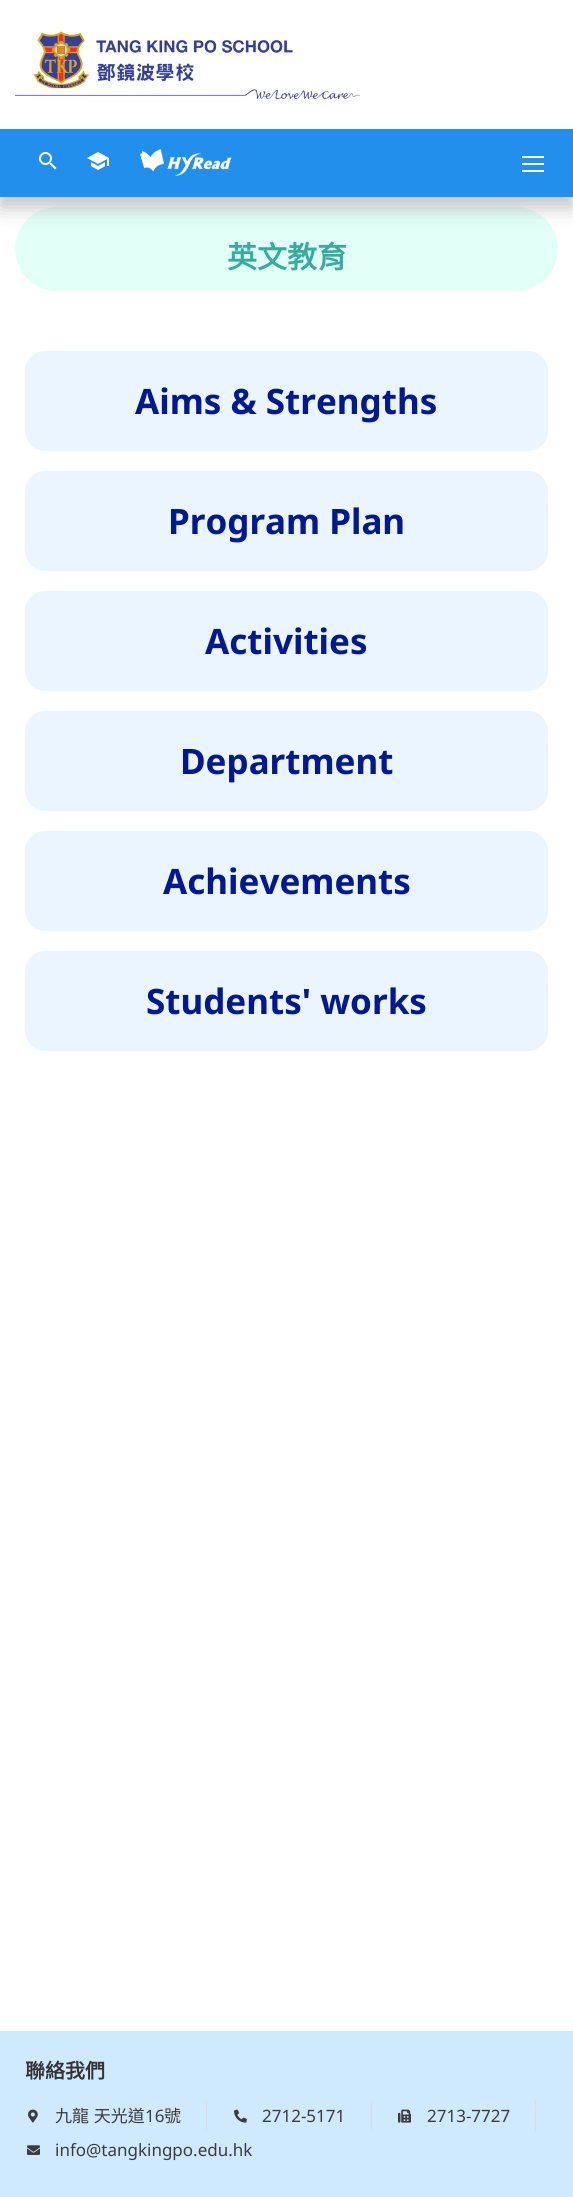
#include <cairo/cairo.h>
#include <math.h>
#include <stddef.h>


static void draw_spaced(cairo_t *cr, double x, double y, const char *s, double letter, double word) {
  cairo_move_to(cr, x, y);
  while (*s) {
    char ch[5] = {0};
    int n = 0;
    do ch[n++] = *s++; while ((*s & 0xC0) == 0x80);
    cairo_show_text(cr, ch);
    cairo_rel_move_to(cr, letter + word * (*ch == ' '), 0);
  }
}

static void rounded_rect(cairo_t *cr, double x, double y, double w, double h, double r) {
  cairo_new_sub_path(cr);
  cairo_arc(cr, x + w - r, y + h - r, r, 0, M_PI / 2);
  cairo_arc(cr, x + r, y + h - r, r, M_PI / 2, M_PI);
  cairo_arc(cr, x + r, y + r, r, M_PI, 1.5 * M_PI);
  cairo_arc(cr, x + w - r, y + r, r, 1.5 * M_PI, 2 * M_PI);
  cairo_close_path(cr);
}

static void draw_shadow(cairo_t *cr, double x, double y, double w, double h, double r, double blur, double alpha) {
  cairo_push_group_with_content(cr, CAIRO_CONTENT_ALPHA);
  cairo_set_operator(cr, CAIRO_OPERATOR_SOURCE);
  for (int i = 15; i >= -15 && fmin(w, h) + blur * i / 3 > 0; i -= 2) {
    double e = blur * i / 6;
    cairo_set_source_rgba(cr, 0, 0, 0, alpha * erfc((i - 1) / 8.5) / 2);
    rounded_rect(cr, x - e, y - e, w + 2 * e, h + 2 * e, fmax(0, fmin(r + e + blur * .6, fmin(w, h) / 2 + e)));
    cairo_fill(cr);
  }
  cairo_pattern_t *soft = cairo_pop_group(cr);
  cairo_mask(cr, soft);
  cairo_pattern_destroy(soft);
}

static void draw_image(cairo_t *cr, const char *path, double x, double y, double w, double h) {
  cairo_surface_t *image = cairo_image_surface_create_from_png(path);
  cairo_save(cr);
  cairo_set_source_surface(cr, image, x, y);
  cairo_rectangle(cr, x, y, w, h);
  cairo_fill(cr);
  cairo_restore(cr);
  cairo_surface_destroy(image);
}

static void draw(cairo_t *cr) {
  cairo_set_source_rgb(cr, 1, 1, 1);
  cairo_paint(cr);
  cairo_set_source_rgb(cr, 226 / 255.0, 1, 247 / 255.0);
  rounded_rect(cr, 15, 207, 543, 84, 42);
  cairo_fill(cr);
  cairo_set_source_rgb(cr, 0, 0, 0);
  draw_shadow(cr, 0, 10, 573, 197, 0, 10, 0.25);
  cairo_set_source_rgb(cr, 35 / 255.0, 143 / 255.0, 236 / 255.0);
  cairo_rectangle(cr, 0, 129, 573, 68);
  cairo_fill(cr);
  cairo_set_source_rgb(cr, 1, 1, 1);
  cairo_rectangle(cr, 0, 0, 573, 129);
  cairo_fill(cr);
  draw_image(cr, "images/1.png", 15, 31, 346, 70);
  draw_image(cr, "images/2.png", 39, 152, 18, 18);
  draw_image(cr, "images/3.png", 87, 152, 22, 18);
  draw_image(cr, "images/4.png", 140, 149, 92, 27);
  cairo_rectangle(cr, 522, 156, 22, 2);
  cairo_fill(cr);
  cairo_rectangle(cr, 522, 163, 22, 2);
  cairo_fill(cr);
  cairo_rectangle(cr, 522, 170, 22, 2);
  cairo_fill(cr);
  cairo_set_source_rgb(cr, 234 / 255.0, 245 / 255.0, 1);
  rounded_rect(cr, 25, 351, 523, 100, 20);
  cairo_fill(cr);
  rounded_rect(cr, 25, 471, 523, 100, 20);
  cairo_fill(cr);
  rounded_rect(cr, 25, 591, 523, 100, 20);
  cairo_fill(cr);
  rounded_rect(cr, 25, 711, 523, 100, 20);
  cairo_fill(cr);
  rounded_rect(cr, 25, 831, 523, 100, 20);
  cairo_fill(cr);
  rounded_rect(cr, 25, 951, 523, 100, 20);
  cairo_fill(cr);
  cairo_set_source_rgb(cr, 207 / 255.0, 233 / 255.0, 1);
  cairo_rectangle(cr, 0, 2031, 573, 166);
  cairo_fill(cr);
  draw_image(cr, "images/5.png", 28, 2109, 10, 14);
  cairo_set_source_rgb(cr, 221 / 255.0, 221 / 255.0, 221 / 255.0);
  cairo_rectangle(cr, 206, 2101, 1, 30);
  cairo_fill(cr);
  draw_image(cr, "images/6.png", 234, 2109, 13, 14);
  cairo_rectangle(cr, 371, 2101, 1, 30);
  cairo_fill(cr);
  draw_image(cr, "images/7.png", 398, 2109, 13, 14);
  cairo_rectangle(cr, 535, 2101, 1, 30);
  cairo_fill(cr);
  draw_image(cr, "images/8.png", 27, 2145, 13, 10);
  cairo_select_font_face(cr, "Noto Sans CJK TC", CAIRO_FONT_SLANT_NORMAL, CAIRO_FONT_WEIGHT_BOLD);
  cairo_set_font_size(cr, 30);
  cairo_set_source_rgb(cr, 54 / 255.0, 172 / 255.0, 157 / 255.0);
  cairo_move_to(cr, 227, 268);
  cairo_show_text(cr, "英文教育");
  cairo_select_font_face(cr, "Noto Sans", CAIRO_FONT_SLANT_NORMAL, CAIRO_FONT_WEIGHT_BOLD);
  cairo_set_font_size(cr, 35);
  cairo_set_source_rgb(cr, 0, 25 / 255.0, 145 / 255.0);
  cairo_move_to(cr, 135, 414);
  cairo_show_text(cr, "Aims & Strengths");
  cairo_move_to(cr, 168, 534);
  cairo_show_text(cr, "Program Plan");
  cairo_move_to(cr, 205, 654);
  cairo_show_text(cr, "Activities");
  cairo_move_to(cr, 180, 774);
  cairo_show_text(cr, "Department");
  cairo_move_to(cr, 163, 894);
  cairo_show_text(cr, "Achievements");
  cairo_move_to(cr, 146, 1014);
  cairo_show_text(cr, "Students' works");
  cairo_select_font_face(cr, "Noto Sans CJK TC", CAIRO_FONT_SLANT_NORMAL, CAIRO_FONT_WEIGHT_BOLD);
  cairo_set_font_size(cr, 20);
  cairo_set_source_rgb(cr, 51 / 255.0, 51 / 255.0, 51 / 255.0);
  cairo_move_to(cr, 25, 2078);
  cairo_show_text(cr, "聯絡我們");
  cairo_select_font_face(cr, "Noto Sans CJK TC", CAIRO_FONT_SLANT_NORMAL, CAIRO_FONT_WEIGHT_NORMAL);
  cairo_set_font_size(cr, 17);
  cairo_set_source_rgb(cr, 60 / 255.0, 60 / 255.0, 60 / 255.0);
  draw_spaced(cr, 55, 2122, "九龍 天光道", 0, 1);
  cairo_select_font_face(cr, "Noto Sans", CAIRO_FONT_SLANT_NORMAL, CAIRO_FONT_WEIGHT_NORMAL);
  cairo_move_to(cr, 145, 2122);
  cairo_show_text(cr, "16");
  cairo_select_font_face(cr, "Noto Sans CJK TC", CAIRO_FONT_SLANT_NORMAL, CAIRO_FONT_WEIGHT_NORMAL);
  cairo_move_to(cr, 164, 2122);
  cairo_show_text(cr, "號");
  cairo_select_font_face(cr, "Noto Sans", CAIRO_FONT_SLANT_NORMAL, CAIRO_FONT_WEIGHT_NORMAL);
  cairo_move_to(cr, 262, 2122);
  cairo_show_text(cr, "2712-5171");
  cairo_move_to(cr, 427, 2122);
  cairo_show_text(cr, "2713-7727");
  cairo_move_to(cr, 55, 2156);
  cairo_show_text(cr, "info@tangkingpo.edu.hk");
}

int main(void) {
  cairo_surface_t *surface = cairo_image_surface_create(CAIRO_FORMAT_RGB24, 573, 2197);
  cairo_t *cr = cairo_create(surface);
  cairo_font_options_t *options = cairo_font_options_create();
  cairo_font_options_set_hint_metrics(options, CAIRO_HINT_METRICS_OFF);
  cairo_font_options_set_hint_style(options, CAIRO_HINT_STYLE_NONE);
  cairo_set_font_options(cr, options);
  cairo_set_miter_limit(cr, 4);
  draw(cr);
  cairo_surface_write_to_png(surface, "out.png");
  cairo_font_options_destroy(options);
  cairo_destroy(cr);
  cairo_surface_destroy(surface);
  return 0;
}
